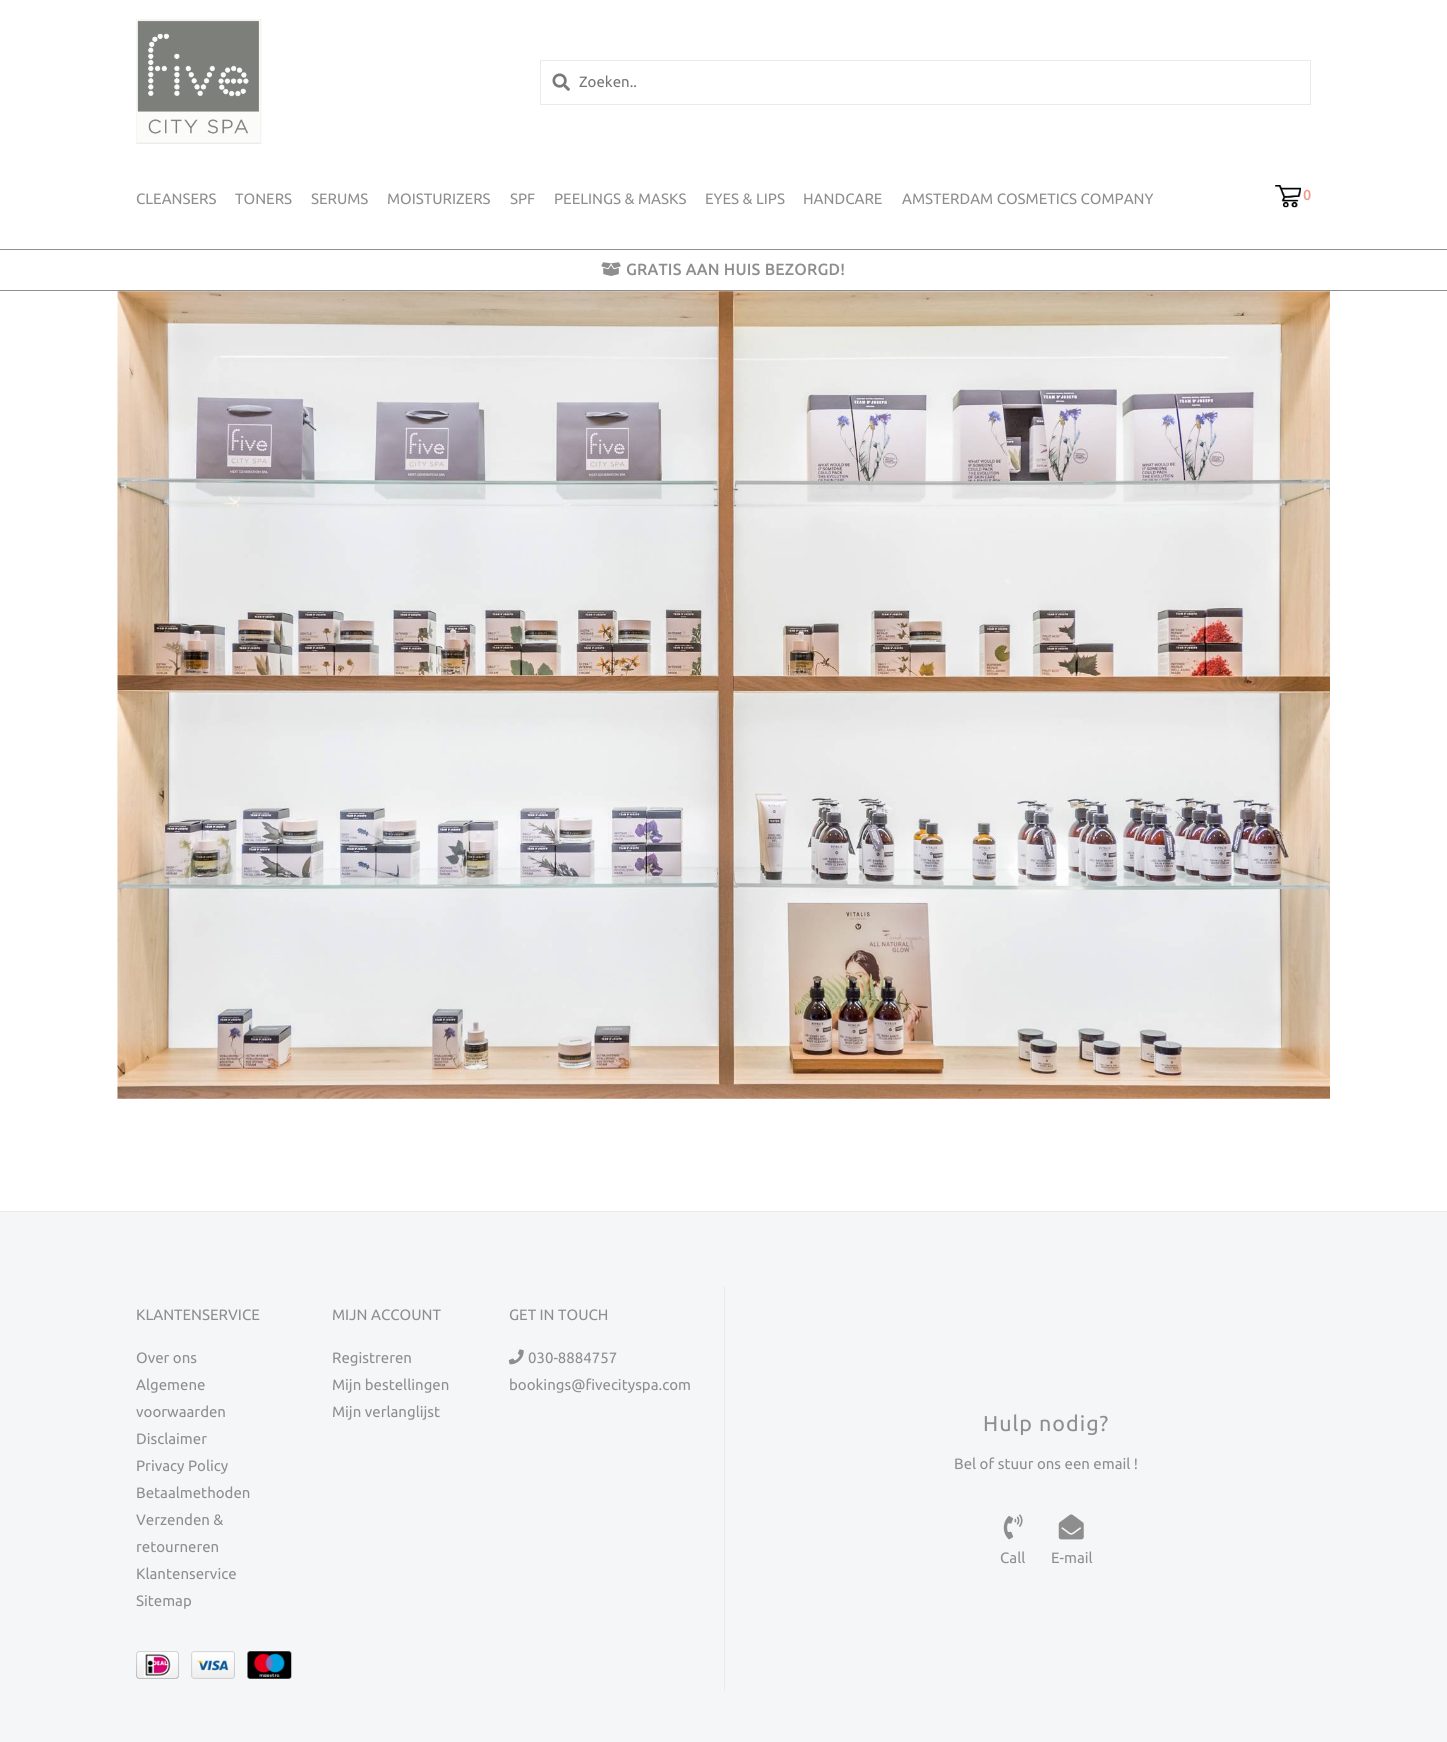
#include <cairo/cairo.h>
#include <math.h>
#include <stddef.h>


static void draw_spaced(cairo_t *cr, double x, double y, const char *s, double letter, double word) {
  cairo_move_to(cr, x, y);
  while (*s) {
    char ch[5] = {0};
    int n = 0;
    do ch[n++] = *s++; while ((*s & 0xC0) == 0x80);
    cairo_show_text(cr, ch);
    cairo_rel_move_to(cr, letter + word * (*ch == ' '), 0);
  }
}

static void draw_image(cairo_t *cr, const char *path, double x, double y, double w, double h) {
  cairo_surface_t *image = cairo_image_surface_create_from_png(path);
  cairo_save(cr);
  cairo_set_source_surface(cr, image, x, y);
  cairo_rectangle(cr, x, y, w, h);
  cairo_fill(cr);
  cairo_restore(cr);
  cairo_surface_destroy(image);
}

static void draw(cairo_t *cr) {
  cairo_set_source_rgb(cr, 1, 1, 1);
  cairo_paint(cr);
  draw_image(cr, "images/1.png", 136, 19, 126, 125);
  cairo_rectangle(cr, 540.5, 60.5, 770, 44);
  cairo_set_source_rgb(cr, 234 / 255.0, 234 / 255.0, 234 / 255.0);
  cairo_set_line_width(cr, 1);
  cairo_stroke(cr);
  draw_image(cr, "images/2.png", 552, 73, 18, 18);
  draw_image(cr, "images/3.png", 1275, 185, 26, 23);
  cairo_set_source_rgb(cr, 142 / 255.0, 142 / 255.0, 142 / 255.0);
  cairo_rectangle(cr, 0, 249, 1447, 1);
  cairo_fill(cr);
  cairo_rectangle(cr, 0, 290, 1447, 1);
  cairo_fill(cr);
  draw_image(cr, "images/4.png", 601, 262, 20, 14);
  draw_image(cr, "images/5.png", 117, 291, 1213, 808);
  cairo_set_source_rgb(cr, 245 / 255.0, 246 / 255.0, 248 / 255.0);
  cairo_rectangle(cr, 0, 1212, 1447, 530);
  cairo_fill(cr);
  cairo_set_source_rgb(cr, 234 / 255.0, 234 / 255.0, 234 / 255.0);
  cairo_rectangle(cr, 0, 1211, 1447, 1);
  cairo_fill(cr);
  draw_image(cr, "images/6.png", 508, 1349, 16, 16);
  draw_image(cr, "images/7.png", 136, 1651, 43, 28);
  draw_image(cr, "images/8.png", 191, 1651, 44, 28);
  draw_image(cr, "images/9.png", 247, 1651, 45, 28);
  cairo_rectangle(cr, 724, 1286, 1, 405);
  cairo_fill(cr);
  draw_image(cr, "images/10.png", 1003, 1514, 20, 26);
  draw_image(cr, "images/11.png", 1058, 1514, 26, 26);
  cairo_select_font_face(cr, "Ubuntu", CAIRO_FONT_SLANT_NORMAL, CAIRO_FONT_WEIGHT_NORMAL);
  cairo_set_font_size(cr, 15);
  cairo_set_source_rgb(cr, 117 / 255.0, 117 / 255.0, 117 / 255.0);
  cairo_move_to(cr, 579, 87);
  cairo_show_text(cr, "Zoeken..");
  cairo_set_source_rgb(cr, 142 / 255.0, 142 / 255.0, 142 / 255.0);
  cairo_move_to(cr, 136, 204);
  cairo_show_text(cr, "CLEANSERS");
  cairo_move_to(cr, 235, 204);
  cairo_show_text(cr, "TONERS");
  cairo_move_to(cr, 311, 204);
  cairo_show_text(cr, "SERUMS");
  cairo_move_to(cr, 387, 204);
  cairo_show_text(cr, "MOISTURIZERS");
  cairo_move_to(cr, 510, 204);
  cairo_show_text(cr, "SPF");
  cairo_move_to(cr, 554, 204);
  cairo_show_text(cr, "PEELINGS & MASKS");
  cairo_move_to(cr, 705, 204);
  cairo_show_text(cr, "EYES & LIPS");
  cairo_move_to(cr, 803, 204);
  cairo_show_text(cr, "HANDCARE");
  cairo_move_to(cr, 902, 204);
  cairo_show_text(cr, "AMSTERDAM COSMETICS COMPANY");
  cairo_select_font_face(cr, "Ubuntu", CAIRO_FONT_SLANT_NORMAL, CAIRO_FONT_WEIGHT_BOLD);
  cairo_set_font_size(cr, 14);
  cairo_set_source_rgb(cr, 240 / 255.0, 154 / 255.0, 139 / 255.0);
  cairo_move_to(cr, 1303, 200);
  cairo_show_text(cr, "0");
  cairo_set_font_size(cr, 15.6);
  cairo_set_source_rgb(cr, 142 / 255.0, 142 / 255.0, 142 / 255.0);
  draw_spaced(cr, 626, 275, "GRATIS AAN HUIS BEZORGD!", 0.6, 0);
  cairo_select_font_face(cr, "Ubuntu", CAIRO_FONT_SLANT_NORMAL, CAIRO_FONT_WEIGHT_NORMAL);
  cairo_set_font_size(cr, 15);
  cairo_move_to(cr, 136, 1320);
  cairo_show_text(cr, "KLANTENSERVICE");
  cairo_move_to(cr, 136, 1363);
  cairo_show_text(cr, "Over ons");
  cairo_move_to(cr, 136, 1390);
  cairo_show_text(cr, "Algemene");
  cairo_move_to(cr, 136, 1417);
  cairo_show_text(cr, "voorwaarden");
  cairo_move_to(cr, 136, 1444);
  cairo_show_text(cr, "Disclaimer");
  cairo_move_to(cr, 136, 1471);
  cairo_show_text(cr, "Privacy Policy");
  cairo_move_to(cr, 136, 1498);
  cairo_show_text(cr, "Betaalmethoden");
  cairo_move_to(cr, 136, 1525);
  cairo_show_text(cr, "Verzenden &");
  cairo_move_to(cr, 136, 1552);
  cairo_show_text(cr, "retourneren");
  cairo_move_to(cr, 136, 1579);
  cairo_show_text(cr, "Klantenservice");
  cairo_move_to(cr, 136, 1606);
  cairo_show_text(cr, "Sitemap");
  cairo_move_to(cr, 332, 1320);
  cairo_show_text(cr, "MIJN ACCOUNT");
  cairo_move_to(cr, 332, 1363);
  cairo_show_text(cr, "Registreren");
  cairo_move_to(cr, 332, 1390);
  cairo_show_text(cr, "Mijn bestellingen");
  cairo_move_to(cr, 332, 1417);
  cairo_show_text(cr, "Mijn verlanglijst");
  cairo_move_to(cr, 509, 1320);
  cairo_show_text(cr, "GET IN TOUCH");
  cairo_move_to(cr, 528, 1363);
  cairo_show_text(cr, "030-8884757");
  cairo_move_to(cr, 509, 1390);
  cairo_show_text(cr, "bookings@fivecityspa.com");
  cairo_set_font_size(cr, 21.5);
  draw_spaced(cr, 983, 1431, "Hulp nodig?", 1, 0);
  cairo_set_font_size(cr, 15);
  cairo_move_to(cr, 954, 1469);
  cairo_show_text(cr, "Bel of stuur ons een email !");
  cairo_move_to(cr, 1000, 1563);
  cairo_show_text(cr, "Call");
  cairo_move_to(cr, 1051, 1563);
  cairo_show_text(cr, "E-mail");
}

int main(void) {
  cairo_surface_t *surface = cairo_image_surface_create(CAIRO_FORMAT_RGB24, 1447, 1742);
  cairo_t *cr = cairo_create(surface);
  cairo_font_options_t *options = cairo_font_options_create();
  cairo_font_options_set_hint_metrics(options, CAIRO_HINT_METRICS_OFF);
  cairo_font_options_set_hint_style(options, CAIRO_HINT_STYLE_NONE);
  cairo_set_font_options(cr, options);
  cairo_set_miter_limit(cr, 4);
  draw(cr);
  cairo_surface_write_to_png(surface, "out.png");
  cairo_font_options_destroy(options);
  cairo_destroy(cr);
  cairo_surface_destroy(surface);
  return 0;
}
